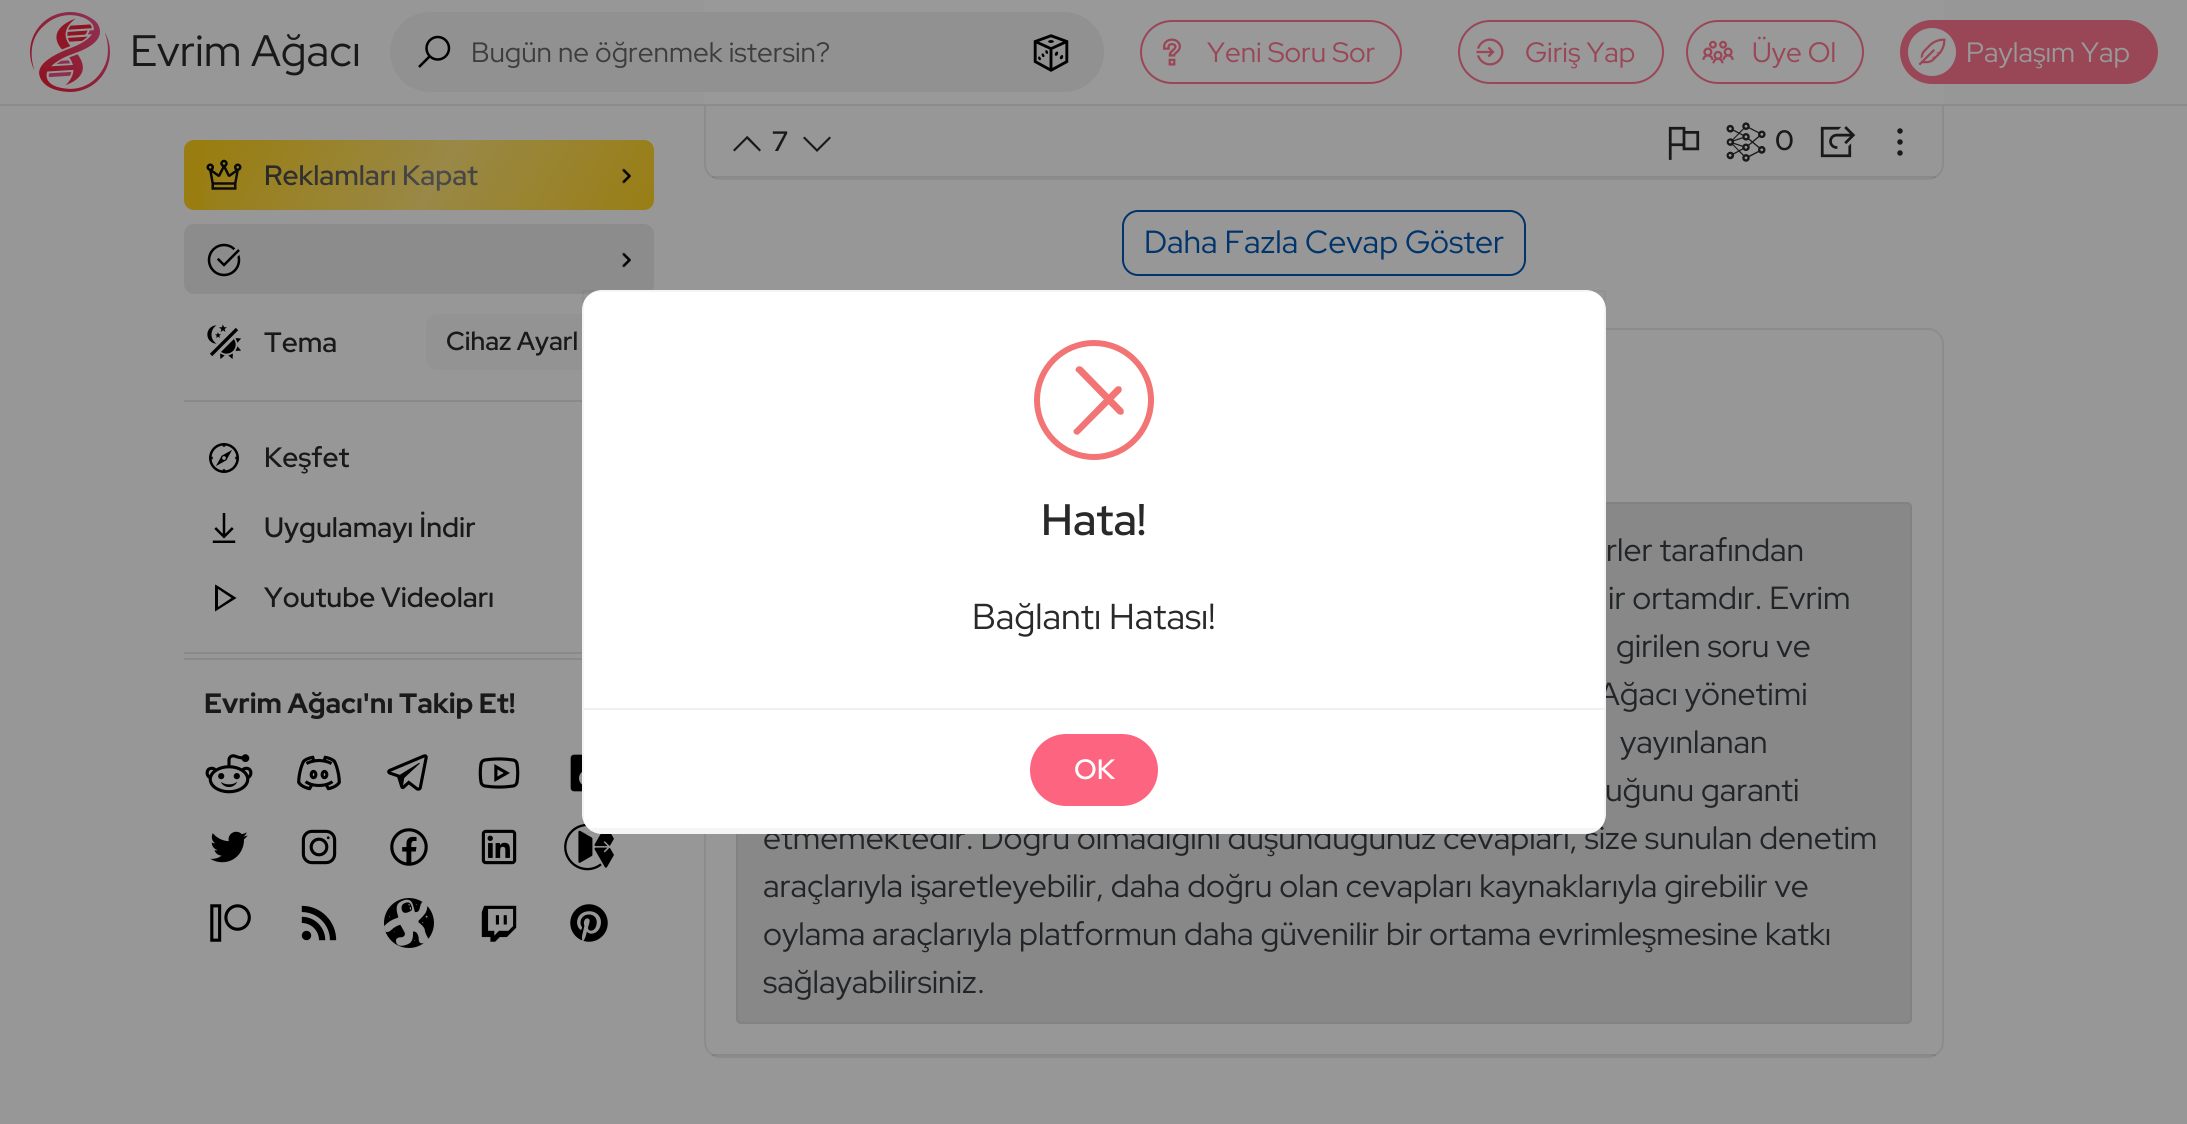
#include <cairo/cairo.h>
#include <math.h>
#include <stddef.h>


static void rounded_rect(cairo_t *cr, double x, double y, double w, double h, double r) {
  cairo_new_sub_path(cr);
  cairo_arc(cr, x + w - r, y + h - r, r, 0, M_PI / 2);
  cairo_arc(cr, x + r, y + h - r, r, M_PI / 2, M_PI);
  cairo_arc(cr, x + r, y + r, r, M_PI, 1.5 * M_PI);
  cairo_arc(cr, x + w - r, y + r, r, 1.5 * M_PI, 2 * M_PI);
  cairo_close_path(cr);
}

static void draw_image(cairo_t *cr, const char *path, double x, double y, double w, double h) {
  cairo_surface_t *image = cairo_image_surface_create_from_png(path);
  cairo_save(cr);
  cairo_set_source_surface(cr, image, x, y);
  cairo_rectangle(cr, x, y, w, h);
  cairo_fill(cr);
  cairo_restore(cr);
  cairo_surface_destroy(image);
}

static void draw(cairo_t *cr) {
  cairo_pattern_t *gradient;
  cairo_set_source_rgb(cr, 151 / 255.0, 151 / 255.0, 151 / 255.0);
  cairo_paint(cr);
  rounded_rect(cr, 705, -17, 1238, 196, 15);
  cairo_set_source_rgb(cr, 140 / 255.0, 140 / 255.0, 140 / 255.0);
  cairo_stroke(cr);
  cairo_set_source_rgb(cr, 153 / 255.0, 153 / 255.0, 153 / 255.0);
  cairo_rectangle(cr, 704, 0, 1240, 104);
  cairo_fill(cr);
  cairo_set_source_rgb(cr, 140 / 255.0, 140 / 255.0, 140 / 255.0);
  cairo_rectangle(cr, 0, 104, 2187, 2);
  cairo_fill(cr);
  draw_image(cr, "images/1.png", 30, 12, 80, 80);
  cairo_set_source_rgb(cr, 145 / 255.0, 145 / 255.0, 145 / 255.0);
  rounded_rect(cr, 390, 12, 714, 80, 40);
  cairo_fill(cr);
  draw_image(cr, "images/2.png", 418, 35, 33, 33);
  draw_image(cr, "images/3.png", 1033, 34, 36, 38);
  rounded_rect(cr, 1141, 21, 260, 62, 31);
  cairo_set_source_rgb(cr, 153 / 255.0, 70 / 255.0, 86 / 255.0);
  cairo_stroke(cr);
  draw_image(cr, "images/4.png", 1163, 38, 18, 28);
  rounded_rect(cr, 1459, 21, 204, 62, 31);
  cairo_stroke(cr);
  draw_image(cr, "images/5.png", 1476, 38, 28, 28);
  rounded_rect(cr, 1687, 21, 176, 62, 31);
  cairo_stroke(cr);
  draw_image(cr, "images/6.png", 1702, 40, 32, 24);
  rounded_rect(cr, 1901, 21, 256, 62, 31);
  cairo_fill_preserve(cr);
  cairo_stroke(cr);
  cairo_set_source_rgb(cr, 153 / 255.0, 153 / 255.0, 153 / 255.0);
  cairo_arc(cr, 1932, 52, 24, 0, 2 * M_PI);
  cairo_fill(cr);
  draw_image(cr, "images/7.png", 1918, 38, 28, 28);
  cairo_set_source_rgb(cr, 138 / 255.0, 138 / 255.0, 138 / 255.0);
  cairo_rectangle(cr, 184, 658, 398, 2);
  cairo_fill(cr);
  cairo_set_source_rgb(cr, 153 / 255.0, 125 / 255.0, 16 / 255.0);
  rounded_rect(cr, 184, 140, 470, 70, 10);
  cairo_fill(cr);
  draw_image(cr, "images/8.png", 206, 159, 36, 31);
  cairo_set_source_rgb(cr, 140 / 255.0, 140 / 255.0, 140 / 255.0);
  rounded_rect(cr, 184, 224, 470, 70, 10);
  cairo_fill(cr);
  draw_image(cr, "images/10.png", 207, 243, 34, 34);
  draw_image(cr, "images/11.png", 622, 252, 9, 16);
  draw_image(cr, "images/12.png", 207, 324, 34, 35);
  cairo_set_source_rgb(cr, 147 / 255.0, 147 / 255.0, 147 / 255.0);
  rounded_rect(cr, 426, 314, 228, 56, 12);
  cairo_fill(cr);
  cairo_set_source_rgb(cr, 138 / 255.0, 138 / 255.0, 138 / 255.0);
  cairo_rectangle(cr, 184, 400, 398, 2);
  cairo_fill(cr);
  draw_image(cr, "images/13.png", 209, 443, 30, 30);
  draw_image(cr, "images/14.png", 212, 513, 24, 30);
  cairo_set_source_rgb(cr, 0, 0, 0);
  cairo_new_path(cr);
  cairo_move_to(cr, 215, 584.5);
  cairo_line_to(cr, 215, 611.5);
  cairo_line_to(cr, 236.5, 598);
  cairo_line_to(cr, 217, 585.5);
  cairo_close_path(cr);
  cairo_move_to(cr, 218, 589);
  cairo_line_to(cr, 231.5, 598);
  cairo_line_to(cr, 218, 607);
  cairo_close_path(cr);
  cairo_fill(cr);
  cairo_set_source_rgb(cr, 138 / 255.0, 138 / 255.0, 138 / 255.0);
  cairo_rectangle(cr, 184, 652, 398, 2);
  cairo_fill(cr);
  draw_image(cr, "images/15.png", 205, 754, 48, 40);
  draw_image(cr, "images/16.png", 297, 755, 44, 36);
  draw_image(cr, "images/17.png", 387, 754, 41, 37);
  draw_image(cr, "images/18.png", 478, 757, 42, 32);
  draw_image(cr, "images/19.png", 570, 754, 12, 38);
  draw_image(cr, "images/20.png", 210, 831, 38, 32);
  draw_image(cr, "images/21.png", 301, 829, 36, 36);
  draw_image(cr, "images/22.png", 390, 828, 38, 38);
  draw_image(cr, "images/23.png", 481, 829, 36, 36);
  draw_image(cr, "images/24.png", 564, 823, 50, 48);
  draw_image(cr, "images/25.png", 210, 904, 41, 38);
  draw_image(cr, "images/26.png", 301, 905, 36, 36);
  draw_image(cr, "images/27.png", 384, 898, 50, 50);
  draw_image(cr, "images/28.png", 481, 905, 36, 37);
  draw_image(cr, "images/29.png", 570, 904, 38, 38);
  cairo_set_source_rgba(cr, 25 / 255.0, 25 / 255.0, 25 / 255.0, 0.1);
  cairo_rectangle(cr, 712, 176, 1224, 2);
  cairo_fill(cr);
  cairo_set_source_rgb(cr, 25 / 255.0, 25 / 255.0, 25 / 255.0);
  cairo_new_path(cr);
  cairo_move_to(cr, 747, 136);
  cairo_line_to(cr, 733, 150);
  cairo_line_to(cr, 734.5, 151.5);
  cairo_line_to(cr, 747, 139);
  cairo_line_to(cr, 759.5, 151.5);
  cairo_line_to(cr, 761, 150);
  cairo_line_to(cr, 748, 136.5);
  cairo_close_path(cr);
  cairo_fill(cr);
  cairo_new_path(cr);
  cairo_move_to(cr, 804.5, 136.5);
  cairo_line_to(cr, 803, 138);
  cairo_line_to(cr, 817, 152);
  cairo_line_to(cr, 831, 138);
  cairo_line_to(cr, 829.5, 136.5);
  cairo_line_to(cr, 817, 149);
  cairo_close_path(cr);
  cairo_fill(cr);
  draw_image(cr, "images/30.png", 1668, 126, 32, 34);
  draw_image(cr, "images/31.png", 1726, 122, 40, 40);
  draw_image(cr, "images/32.png", 1820, 126, 36, 32);
  draw_image(cr, "images/33.png", 1897, 128, 6, 28);
  rounded_rect(cr, 1123, 211, 402, 64, 15);
  cairo_set_source_rgb(cr, 0, 52 / 255.0, 107 / 255.0);
  cairo_stroke(cr);
  rounded_rect(cr, 705, 329, 1238, 728, 15);
  cairo_set_source_rgb(cr, 140 / 255.0, 140 / 255.0, 140 / 255.0);
  cairo_stroke(cr);
  cairo_set_source_rgba(cr, 25 / 255.0, 25 / 255.0, 25 / 255.0, 0.1);
  cairo_rectangle(cr, 712, 1054, 1224, 2);
  cairo_fill(cr);
  cairo_set_source_rgb(cr, 136 / 255.0, 136 / 255.0, 137 / 255.0);
  rounded_rect(cr, 737, 503, 1174, 520, 4);
  cairo_fill_preserve(cr);
  cairo_set_source_rgb(cr, 128 / 255.0, 130 / 255.0, 131 / 255.0);
  cairo_stroke(cr);
  cairo_select_font_face(cr, "Red Hat Display", CAIRO_FONT_SLANT_NORMAL, CAIRO_FONT_WEIGHT_NORMAL);
  cairo_set_font_size(cr, 44);
  cairo_set_source_rgb(cr, 25 / 255.0, 25 / 255.0, 25 / 255.0);
  cairo_move_to(cr, 130, 66);
  cairo_show_text(cr, "Evrim Ağacı");
  cairo_set_font_size(cr, 28);
  cairo_set_source_rgb(cr, 61 / 255.0, 61 / 255.0, 61 / 255.0);
  cairo_move_to(cr, 471, 62);
  cairo_show_text(cr, "Bugün ne öğrenmek istersin?");
  cairo_set_source_rgb(cr, 153 / 255.0, 70 / 255.0, 86 / 255.0);
  cairo_move_to(cr, 1207, 62);
  cairo_show_text(cr, "Yeni Soru Sor");
  cairo_move_to(cr, 1525, 62);
  cairo_show_text(cr, "Giriş Yap");
  cairo_move_to(cr, 1752, 62);
  cairo_show_text(cr, "Üye Ol");
  cairo_set_source_rgb(cr, 153 / 255.0, 153 / 255.0, 153 / 255.0);
  cairo_move_to(cr, 1966, 62);
  cairo_show_text(cr, "Paylaşım Yap");
  cairo_select_font_face(cr, "Red Hat Display SemiBold", CAIRO_FONT_SLANT_NORMAL, CAIRO_FONT_WEIGHT_NORMAL);
  cairo_set_source_rgb(cr, 25 / 255.0, 25 / 255.0, 25 / 255.0);
  cairo_move_to(cr, 264, 185);
  cairo_show_text(cr, "Reklamları Kapat");
  gradient = cairo_pattern_create_linear(248, 64, 630, 286);
  cairo_pattern_add_color_stop_rgba(gradient, 0, 153 / 255.0, 153 / 255.0, 153 / 255.0, 0);
  cairo_pattern_add_color_stop_rgba(gradient, 0.5, 153 / 255.0, 153 / 255.0, 153 / 255.0, 0.4);
  cairo_pattern_add_color_stop_rgba(gradient, 1, 153 / 255.0, 153 / 255.0, 153 / 255.0, 0);
  cairo_set_source(cr, gradient);
  cairo_pattern_destroy(gradient);
  cairo_new_path(cr);
  cairo_move_to(cr, 204, 140);
  cairo_line_to(cr, 644, 140);
  cairo_curve_to(cr, 649.5, 140, 654, 144.5, 654, 150);
  cairo_line_to(cr, 654, 200);
  cairo_curve_to(cr, 654, 205.5, 649.5, 210, 644, 210);
  cairo_line_to(cr, 204, 210);
  cairo_close_path(cr);
  cairo_fill(cr);
  draw_image(cr, "images/9.png", 622, 168, 9, 16);
  cairo_select_font_face(cr, "Red Hat Display Medium", CAIRO_FONT_SLANT_NORMAL, CAIRO_FONT_WEIGHT_NORMAL);
  cairo_set_source_rgb(cr, 25 / 255.0, 25 / 255.0, 25 / 255.0);
  cairo_move_to(cr, 264, 352);
  cairo_show_text(cr, "Tema");
  cairo_set_font_size(cr, 26);
  cairo_move_to(cr, 446, 350);
  cairo_show_text(cr, "Cihaz Ayarl");
  cairo_set_font_size(cr, 28);
  cairo_move_to(cr, 264, 467);
  cairo_show_text(cr, "Keşfet");
  cairo_move_to(cr, 264, 537);
  cairo_show_text(cr, "Uygulamayı İndir");
  cairo_move_to(cr, 264, 607);
  cairo_show_text(cr, "Youtube Videoları");
  cairo_select_font_face(cr, "Red Hat Display", CAIRO_FONT_SLANT_NORMAL, CAIRO_FONT_WEIGHT_BOLD);
  cairo_move_to(cr, 204, 713);
  cairo_show_text(cr, "Evrim Ağacı'nı Takip Et!");
  cairo_select_font_face(cr, "Red Hat Display Medium", CAIRO_FONT_SLANT_NORMAL, CAIRO_FONT_WEIGHT_NORMAL);
  cairo_move_to(cr, 772, 151);
  cairo_show_text(cr, "7");
  cairo_move_to(cr, 1775, 150);
  cairo_show_text(cr, "0");
  cairo_select_font_face(cr, "Red Hat Display", CAIRO_FONT_SLANT_NORMAL, CAIRO_FONT_WEIGHT_NORMAL);
  cairo_set_font_size(cr, 32);
  cairo_set_source_rgb(cr, 0, 52 / 255.0, 107 / 255.0);
  cairo_move_to(cr, 1144, 253);
  cairo_show_text(cr, "Daha Fazla Cevap Göster");
  cairo_set_source_rgb(cr, 34 / 255.0, 37 / 255.0, 39 / 255.0);
  cairo_move_to(cr, 1606, 561);
  cairo_show_text(cr, "rler tarafından");
  cairo_move_to(cr, 1608, 609);
  cairo_show_text(cr, "ir ortamdır. Evrim");
  cairo_move_to(cr, 1616, 657);
  cairo_show_text(cr, "girilen soru ve");
  cairo_move_to(cr, 1598, 705);
  cairo_show_text(cr, "Ağacı yönetimi");
  cairo_move_to(cr, 1620, 753);
  cairo_show_text(cr, "yayınlanan");
  cairo_move_to(cr, 1605, 801);
  cairo_show_text(cr, "uğunu garanti");
  cairo_move_to(cr, 763, 849);
  cairo_show_text(cr, "etmemektedir. Doğru olmadığını düşündüğünüz cevapları, size sunulan denetim");
  cairo_move_to(cr, 763, 897);
  cairo_show_text(cr, "araçlarıyla işaretleyebilir, daha doğru olan cevapları kaynaklarıyla girebilir ve");
  cairo_move_to(cr, 763, 945);
  cairo_show_text(cr, "oylama araçlarıyla platformun daha güvenilir bir ortama evrimleşmesine katkı");
  cairo_move_to(cr, 763, 993);
  cairo_show_text(cr, "sağlayabilirsiniz.");
  cairo_set_source_rgb(cr, 1, 1, 1);
  rounded_rect(cr, 582, 290, 1024, 544, 20);
  cairo_fill(cr);
  cairo_rectangle(cr, 583, 291, 1022, 542);
  cairo_set_source_rgba(cr, 41 / 255.0, 41 / 255.0, 41 / 255.0, 0.05);
  cairo_stroke(cr);
  cairo_rectangle(cr, 592, 830, 1004, 2);
  cairo_fill(cr);
  cairo_arc(cr, 1094, 400, 57, 0, 2 * M_PI);
  cairo_set_source_rgb(cr, 242 / 255.0, 116 / 255.0, 116 / 255.0);
  cairo_set_line_width(cr, 6);
  cairo_stroke(cr);
  cairo_new_path(cr);
  cairo_move_to(cr, 1082, 367);
  cairo_line_to(cr, 1123, 409);
  cairo_curve_to(cr, 1124, 410, 1124, 413, 1123, 414);
  cairo_curve_to(cr, 1122, 415, 1120, 415, 1118, 414);
  cairo_line_to(cr, 1077, 372);
  cairo_curve_to(cr, 1075, 371, 1075, 369, 1077, 367);
  cairo_curve_to(cr, 1078, 366, 1080, 366, 1082, 367);
  cairo_close_path(cr);
  cairo_fill(cr);
  cairo_new_path(cr);
  cairo_move_to(cr, 1075, 429);
  cairo_line_to(cr, 1116, 387);
  cairo_curve_to(cr, 1117, 386, 1120, 386, 1121, 387);
  cairo_curve_to(cr, 1122, 389, 1122, 391, 1121, 392);
  cairo_line_to(cr, 1079, 434);
  cairo_curve_to(cr, 1078, 435, 1076, 435, 1075, 434);
  cairo_curve_to(cr, 1073, 433, 1073, 430, 1075, 429);
  cairo_close_path(cr);
  cairo_fill(cr);
  cairo_select_font_face(cr, "Red Hat Display SemiBold", CAIRO_FONT_SLANT_NORMAL, CAIRO_FONT_WEIGHT_NORMAL);
  cairo_set_font_size(cr, 44);
  cairo_set_source_rgb(cr, 41 / 255.0, 41 / 255.0, 41 / 255.0);
  cairo_move_to(cr, 1041, 535);
  cairo_show_text(cr, "Hata!");
  cairo_select_font_face(cr, "Red Hat Display", CAIRO_FONT_SLANT_NORMAL, CAIRO_FONT_WEIGHT_NORMAL);
  cairo_set_font_size(cr, 36);
  cairo_move_to(cr, 972, 629);
  cairo_show_text(cr, "Bağlantı Hatası!");
  cairo_set_source_rgb(cr, 240 / 255.0, 240 / 255.0, 240 / 255.0);
  cairo_rectangle(cr, 584, 708, 1020, 2);
  cairo_fill(cr);
  cairo_set_source_rgba(cr, 41 / 255.0, 41 / 255.0, 41 / 255.0, 0.05);
  cairo_rectangle(cr, 584, 828, 1020, 2);
  cairo_fill(cr);
  cairo_set_source_rgb(cr, 253 / 255.0, 100 / 255.0, 128 / 255.0);
  rounded_rect(cr, 1030, 734, 128, 72, 36);
  cairo_fill(cr);
  cairo_select_font_face(cr, "Red Hat Display Medium", CAIRO_FONT_SLANT_NORMAL, CAIRO_FONT_WEIGHT_NORMAL);
  cairo_set_font_size(cr, 28);
  cairo_set_source_rgb(cr, 1, 1, 1);
  cairo_move_to(cr, 1074, 779);
  cairo_show_text(cr, "OK");
}

int main(void) {
  cairo_surface_t *surface = cairo_image_surface_create(CAIRO_FORMAT_RGB24, 2187, 1124);
  cairo_t *cr = cairo_create(surface);
  cairo_font_options_t *options = cairo_font_options_create();
  cairo_font_options_set_hint_metrics(options, CAIRO_HINT_METRICS_OFF);
  cairo_font_options_set_hint_style(options, CAIRO_HINT_STYLE_NONE);
  cairo_set_font_options(cr, options);
  cairo_set_miter_limit(cr, 4);
  draw(cr);
  cairo_surface_write_to_png(surface, "out.png");
  cairo_font_options_destroy(options);
  cairo_destroy(cr);
  cairo_surface_destroy(surface);
  return 0;
}
